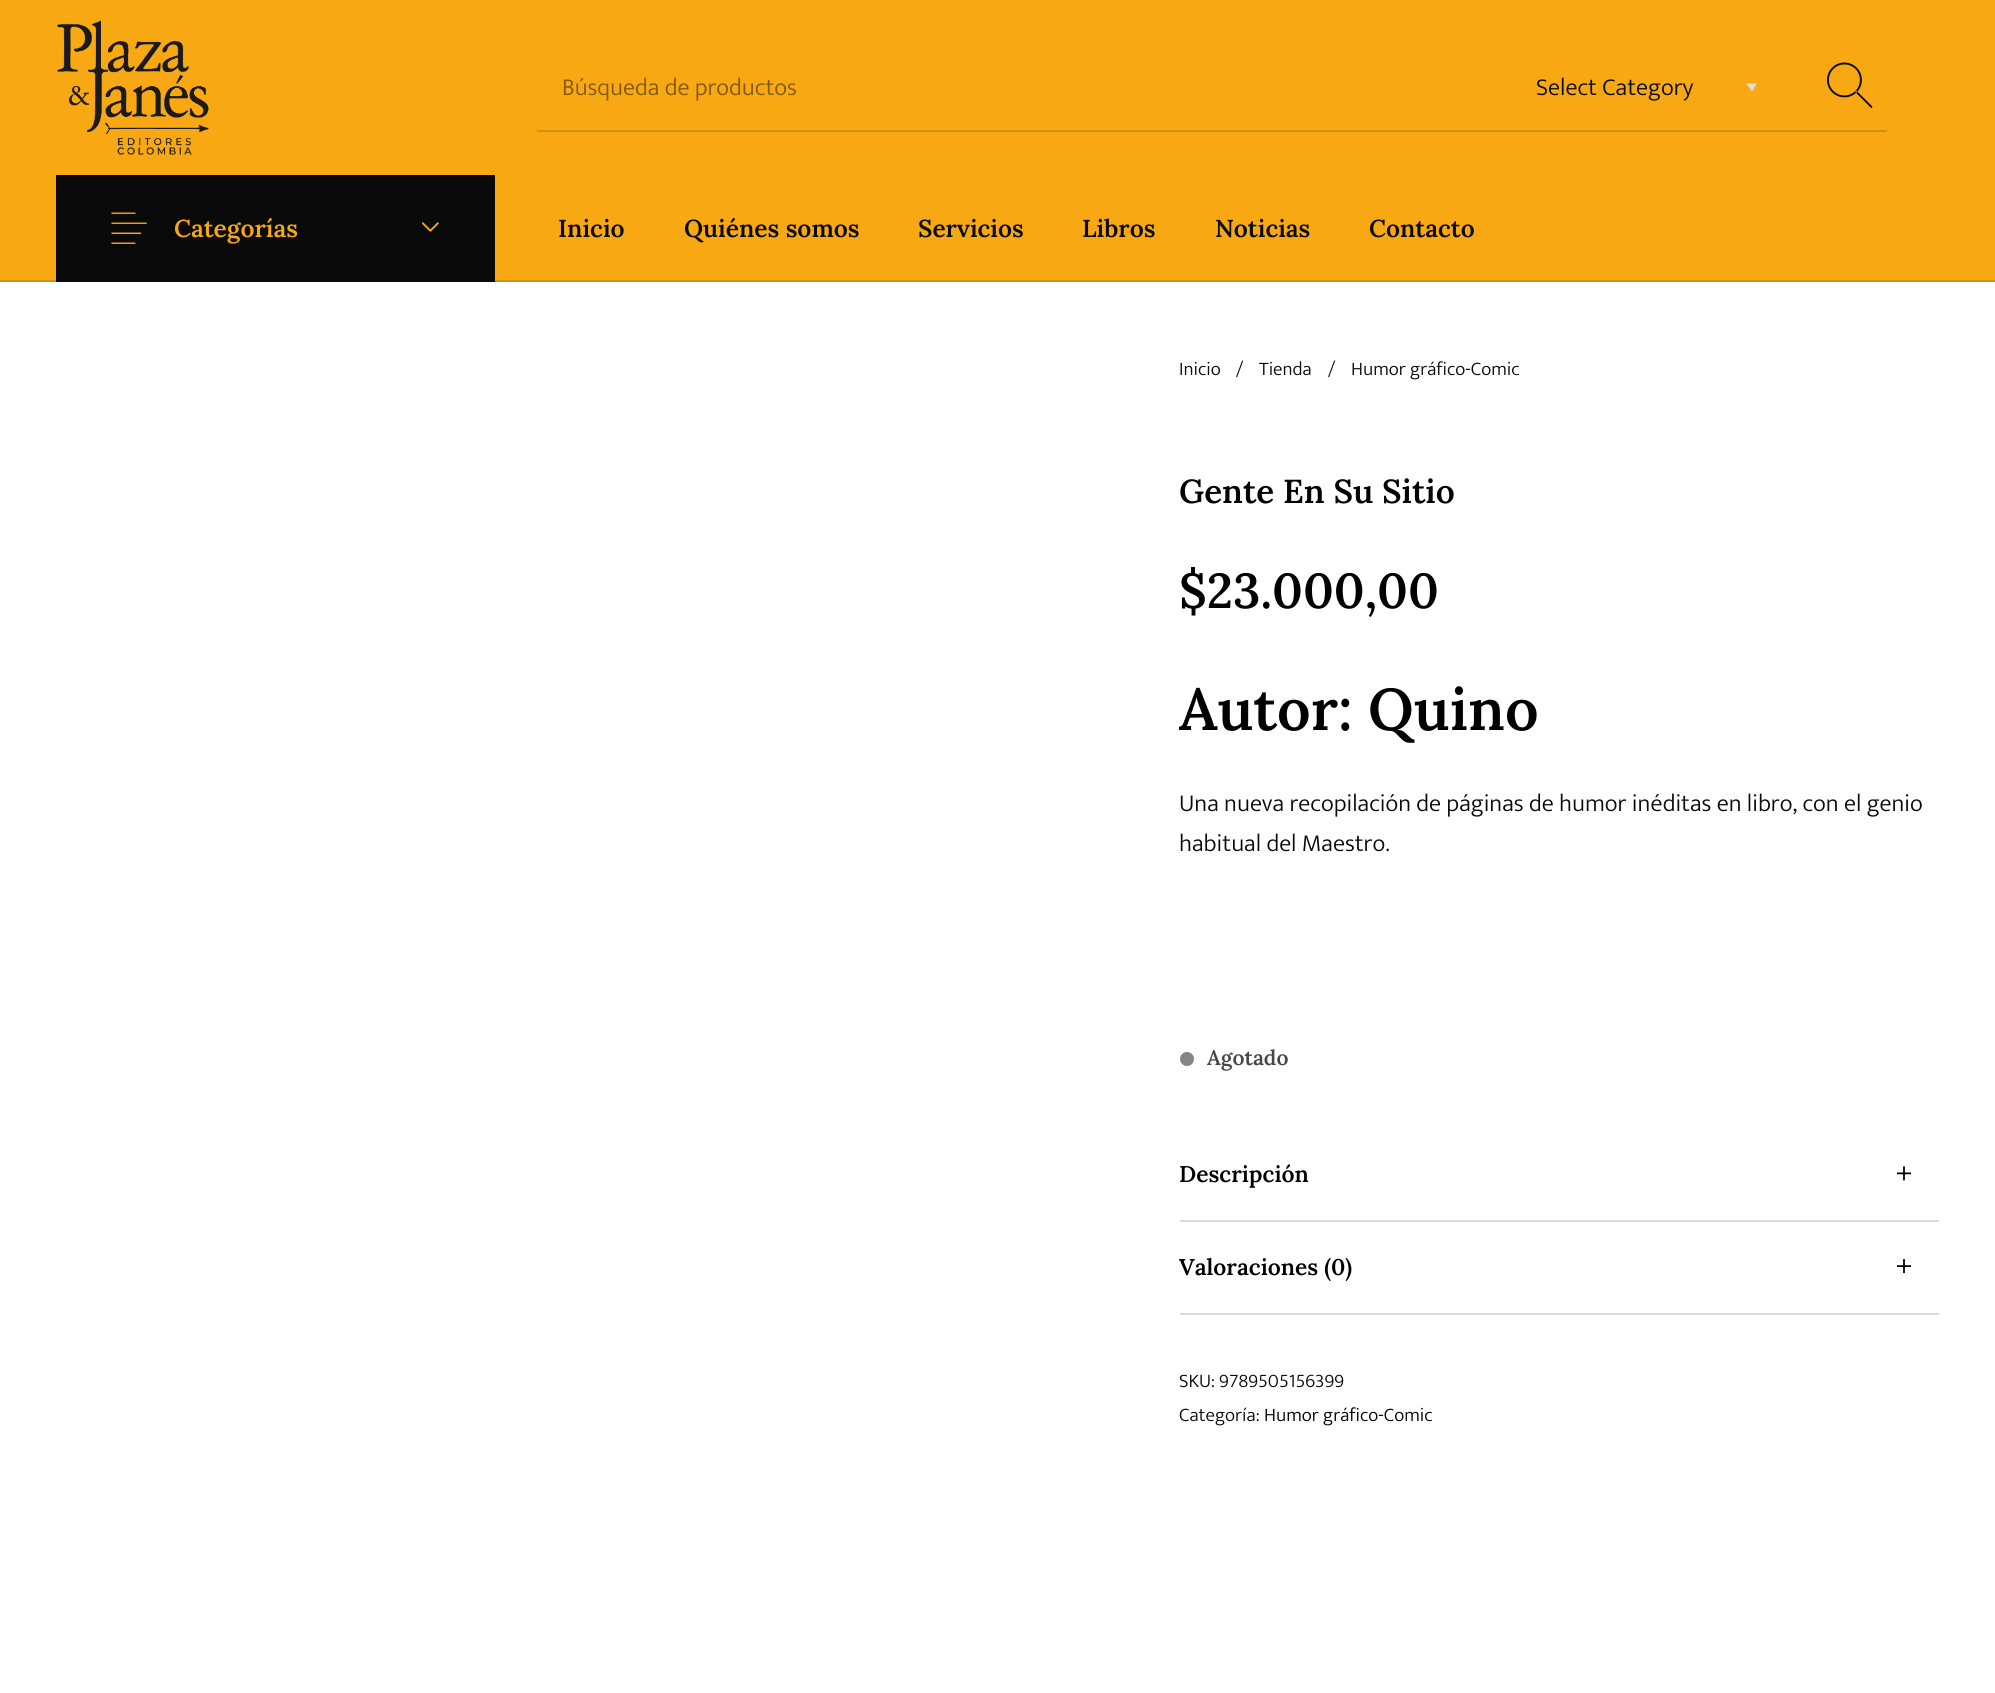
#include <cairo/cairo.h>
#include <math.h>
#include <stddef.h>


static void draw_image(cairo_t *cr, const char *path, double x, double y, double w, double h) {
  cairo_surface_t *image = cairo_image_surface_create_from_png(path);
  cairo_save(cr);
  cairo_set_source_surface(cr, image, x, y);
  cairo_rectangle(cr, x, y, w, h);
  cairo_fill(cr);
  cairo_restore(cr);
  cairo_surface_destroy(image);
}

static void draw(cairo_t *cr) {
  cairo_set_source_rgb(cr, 1, 1, 1);
  cairo_paint(cr);
  cairo_set_source_rgb(cr, 247 / 255.0, 168 / 255.0, 18 / 255.0);
  cairo_rectangle(cr, 0, 0, 1995, 280);
  cairo_fill(cr);
  draw_image(cr, "images/1.png", 57, 20, 152, 135);
  cairo_set_source_rgb(cr, 211 / 255.0, 144 / 255.0, 17 / 255.0);
  cairo_rectangle(cr, 537, 130, 1350, 2);
  cairo_fill(cr);
  cairo_set_source_rgb(cr, 221 / 255.0, 221 / 255.0, 221 / 255.0);
  cairo_new_path(cr);
  cairo_move_to(cr, 1746.5, 83.5);
  cairo_line_to(cr, 1757, 83.5);
  cairo_line_to(cr, 1752, 91.5);
  cairo_close_path(cr);
  cairo_fill(cr);
  draw_image(cr, "images/2.png", 1827, 62, 46, 46);
  cairo_set_source_rgb(cr, 211 / 255.0, 144 / 255.0, 17 / 255.0);
  cairo_rectangle(cr, 0, 280, 1995, 2);
  cairo_fill(cr);
  cairo_set_source_rgb(cr, 10 / 255.0, 10 / 255.0, 10 / 255.0);
  cairo_rectangle(cr, 56, 175, 439, 107);
  cairo_fill(cr);
  draw_image(cr, "images/3.png", 111, 212, 36, 32);
  draw_image(cr, "images/4.png", 421, 222, 18, 10);
  cairo_set_source_rgb(cr, 133 / 255.0, 133 / 255.0, 133 / 255.0);
  cairo_arc(cr, 1187, 1059, 7, 0, 2 * M_PI);
  cairo_fill(cr);
  cairo_set_source_rgb(cr, 218 / 255.0, 218 / 255.0, 218 / 255.0);
  cairo_rectangle(cr, 1180, 1220, 759, 2);
  cairo_fill(cr);
  draw_image(cr, "images/5.png", 1897, 1166, 14, 15);
  cairo_rectangle(cr, 1180, 1313, 759, 2);
  cairo_fill(cr);
  draw_image(cr, "images/6.png", 1897, 1259, 14, 15);
  cairo_select_font_face(cr, "Mukta Light", CAIRO_FONT_SLANT_NORMAL, CAIRO_FONT_WEIGHT_NORMAL);
  cairo_set_font_size(cr, 24.5);
  cairo_set_source_rgb(cr, 129 / 255.0, 89 / 255.0, 14 / 255.0);
  cairo_move_to(cr, 562, 95);
  cairo_show_text(cr, "Búsqueda de productos");
  cairo_set_source_rgb(cr, 10 / 255.0, 10 / 255.0, 10 / 255.0);
  cairo_move_to(cr, 1536, 95);
  cairo_show_text(cr, "Select Category");
  cairo_select_font_face(cr, "Lora SemiBold", CAIRO_FONT_SLANT_NORMAL, CAIRO_FONT_WEIGHT_NORMAL);
  cairo_set_source_rgb(cr, 247 / 255.0, 168 / 255.0, 18 / 255.0);
  cairo_move_to(cr, 174, 237);
  cairo_show_text(cr, "Categorías");
  cairo_set_source_rgb(cr, 10 / 255.0, 10 / 255.0, 10 / 255.0);
  cairo_move_to(cr, 558, 237);
  cairo_show_text(cr, "Inicio");
  cairo_move_to(cr, 684, 237);
  cairo_show_text(cr, "Quiénes somos");
  cairo_move_to(cr, 918, 237);
  cairo_show_text(cr, "Servicios");
  cairo_move_to(cr, 1082, 237);
  cairo_show_text(cr, "Libros");
  cairo_move_to(cr, 1215, 237);
  cairo_show_text(cr, "Noticias");
  cairo_move_to(cr, 1369, 237);
  cairo_show_text(cr, "Contacto");
  cairo_select_font_face(cr, "Mukta Light", CAIRO_FONT_SLANT_NORMAL, CAIRO_FONT_WEIGHT_NORMAL);
  cairo_set_font_size(cr, 19.25);
  cairo_move_to(cr, 1179, 375);
  cairo_show_text(cr, "Inicio");
  cairo_move_to(cr, 1236, 375);
  cairo_show_text(cr, "/");
  cairo_move_to(cr, 1259, 375);
  cairo_show_text(cr, "Tienda");
  cairo_move_to(cr, 1328, 375);
  cairo_show_text(cr, "/");
  cairo_move_to(cr, 1351, 375);
  cairo_show_text(cr, "Humor gráfico-Comic");
  cairo_select_font_face(cr, "Lora SemiBold", CAIRO_FONT_SLANT_NORMAL, CAIRO_FONT_WEIGHT_NORMAL);
  cairo_set_font_size(cr, 33.25);
  cairo_set_source_rgb(cr, 0, 0, 0);
  cairo_move_to(cr, 1179, 503);
  cairo_show_text(cr, "Gente En Su Sitio");
  cairo_set_font_size(cr, 49);
  cairo_move_to(cr, 1179, 608);
  cairo_show_text(cr, "$23.000,00");
  cairo_set_font_size(cr, 58.75);
  cairo_move_to(cr, 1179, 730);
  cairo_show_text(cr, "Autor: Quino");
  cairo_select_font_face(cr, "Mukta Light", CAIRO_FONT_SLANT_NORMAL, CAIRO_FONT_WEIGHT_NORMAL);
  cairo_set_font_size(cr, 24.5);
  cairo_set_source_rgb(cr, 10 / 255.0, 10 / 255.0, 10 / 255.0);
  cairo_move_to(cr, 1179, 811);
  cairo_show_text(cr, "Una nueva recopilación de páginas de humor inéditas en libro, con el genio");
  cairo_move_to(cr, 1179, 851);
  cairo_show_text(cr, "habitual del Maestro.");
  cairo_select_font_face(cr, "Lora SemiBold", CAIRO_FONT_SLANT_NORMAL, CAIRO_FONT_WEIGHT_NORMAL);
  cairo_set_font_size(cr, 21);
  cairo_set_source_rgb(cr, 71 / 255.0, 71 / 255.0, 71 / 255.0);
  cairo_move_to(cr, 1207, 1065);
  cairo_show_text(cr, "Agotado");
  cairo_set_font_size(cr, 22.75);
  cairo_set_source_rgb(cr, 0, 0, 0);
  cairo_move_to(cr, 1179, 1182);
  cairo_show_text(cr, "Descripción");
  cairo_move_to(cr, 1179, 1275);
  cairo_show_text(cr, "Valoraciones (0)");
  cairo_select_font_face(cr, "Mukta Light", CAIRO_FONT_SLANT_NORMAL, CAIRO_FONT_WEIGHT_NORMAL);
  cairo_set_font_size(cr, 19.25);
  cairo_set_source_rgb(cr, 10 / 255.0, 10 / 255.0, 10 / 255.0);
  cairo_move_to(cr, 1179, 1387);
  cairo_show_text(cr, "SKU: 9789505156399");
  cairo_move_to(cr, 1179, 1421);
  cairo_show_text(cr, "Categoría:");
  cairo_set_source_rgb(cr, 0, 0, 0);
  cairo_move_to(cr, 1264, 1421);
  cairo_show_text(cr, "Humor gráfico-Comic");
}

int main(void) {
  cairo_surface_t *surface = cairo_image_surface_create(CAIRO_FORMAT_RGB24, 1995, 1693);
  cairo_t *cr = cairo_create(surface);
  cairo_font_options_t *options = cairo_font_options_create();
  cairo_font_options_set_hint_metrics(options, CAIRO_HINT_METRICS_OFF);
  cairo_font_options_set_hint_style(options, CAIRO_HINT_STYLE_NONE);
  cairo_set_font_options(cr, options);
  cairo_set_miter_limit(cr, 4);
  draw(cr);
  cairo_surface_write_to_png(surface, "out.png");
  cairo_font_options_destroy(options);
  cairo_destroy(cr);
  cairo_surface_destroy(surface);
  return 0;
}
